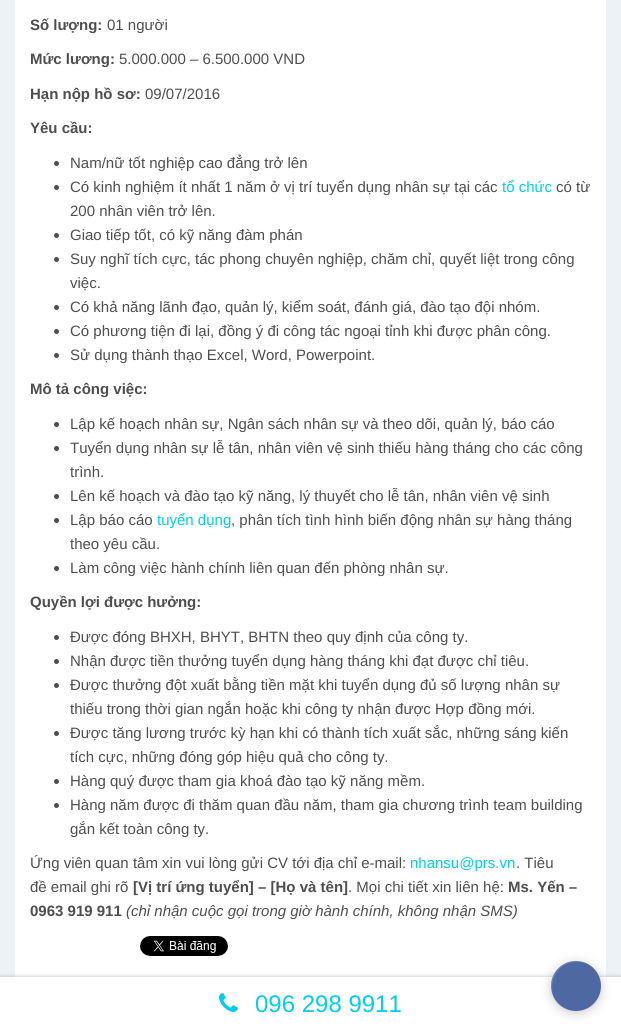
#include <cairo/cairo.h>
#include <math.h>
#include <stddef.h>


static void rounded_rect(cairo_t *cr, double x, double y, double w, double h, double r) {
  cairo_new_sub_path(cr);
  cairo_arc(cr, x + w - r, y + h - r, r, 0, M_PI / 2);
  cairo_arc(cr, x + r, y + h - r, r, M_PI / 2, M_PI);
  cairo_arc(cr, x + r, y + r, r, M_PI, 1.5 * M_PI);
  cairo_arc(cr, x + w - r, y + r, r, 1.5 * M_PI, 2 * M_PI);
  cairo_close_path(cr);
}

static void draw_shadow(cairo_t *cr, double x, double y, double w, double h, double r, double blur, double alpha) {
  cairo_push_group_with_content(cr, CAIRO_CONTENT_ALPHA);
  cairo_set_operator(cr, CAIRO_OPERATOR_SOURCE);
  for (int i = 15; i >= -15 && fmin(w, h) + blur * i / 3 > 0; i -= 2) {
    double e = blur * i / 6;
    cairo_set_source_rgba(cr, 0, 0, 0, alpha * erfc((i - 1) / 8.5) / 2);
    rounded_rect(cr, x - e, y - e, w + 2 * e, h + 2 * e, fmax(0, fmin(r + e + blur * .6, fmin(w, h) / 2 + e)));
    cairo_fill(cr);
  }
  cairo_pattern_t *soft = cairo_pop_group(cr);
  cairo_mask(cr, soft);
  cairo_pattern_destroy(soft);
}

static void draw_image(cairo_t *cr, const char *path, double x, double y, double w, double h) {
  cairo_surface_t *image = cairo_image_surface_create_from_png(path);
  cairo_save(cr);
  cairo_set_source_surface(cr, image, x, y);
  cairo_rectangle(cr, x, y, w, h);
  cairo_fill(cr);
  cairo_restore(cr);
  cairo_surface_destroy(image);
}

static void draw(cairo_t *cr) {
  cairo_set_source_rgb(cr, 236 / 255.0, 242 / 255.0, 245 / 255.0);
  cairo_paint(cr);
  cairo_set_source_rgb(cr, 1, 1, 1);
  cairo_rectangle(cr, 15, 0, 591, 977);
  cairo_fill(cr);
  cairo_set_source_rgb(cr, 78 / 255.0, 78 / 255.0, 78 / 255.0);
  cairo_arc(cr, 56.5, 163.5, 2.5, 0, 2 * M_PI);
  cairo_fill(cr);
  cairo_arc(cr, 56.5, 187.5, 2.5, 0, 2 * M_PI);
  cairo_fill(cr);
  cairo_arc(cr, 56.5, 235.5, 2.5, 0, 2 * M_PI);
  cairo_fill(cr);
  cairo_arc(cr, 56.5, 259.5, 2.5, 0, 2 * M_PI);
  cairo_fill(cr);
  cairo_arc(cr, 56.5, 307.5, 2.5, 0, 2 * M_PI);
  cairo_fill(cr);
  cairo_arc(cr, 56.5, 331.5, 2.5, 0, 2 * M_PI);
  cairo_fill(cr);
  cairo_arc(cr, 56.5, 355.5, 2.5, 0, 2 * M_PI);
  cairo_fill(cr);
  cairo_arc(cr, 56.5, 424.5, 2.5, 0, 2 * M_PI);
  cairo_fill(cr);
  cairo_arc(cr, 56.5, 448.5, 2.5, 0, 2 * M_PI);
  cairo_fill(cr);
  cairo_arc(cr, 56.5, 496.5, 2.5, 0, 2 * M_PI);
  cairo_fill(cr);
  cairo_arc(cr, 56.5, 520.5, 2.5, 0, 2 * M_PI);
  cairo_fill(cr);
  cairo_arc(cr, 56.5, 568.5, 2.5, 0, 2 * M_PI);
  cairo_fill(cr);
  cairo_arc(cr, 56.5, 637.5, 2.5, 0, 2 * M_PI);
  cairo_fill(cr);
  cairo_arc(cr, 56.5, 661.5, 2.5, 0, 2 * M_PI);
  cairo_fill(cr);
  cairo_arc(cr, 56.5, 685.5, 2.5, 0, 2 * M_PI);
  cairo_fill(cr);
  cairo_arc(cr, 56.5, 733.5, 2.5, 0, 2 * M_PI);
  cairo_fill(cr);
  cairo_arc(cr, 56.5, 781.5, 2.5, 0, 2 * M_PI);
  cairo_fill(cr);
  cairo_arc(cr, 56.5, 805.5, 2.5, 0, 2 * M_PI);
  cairo_fill(cr);
  draw_image(cr, "images/1.png", 140, 936, 88, 20);
  cairo_set_source_rgb(cr, 0, 0, 0);
  draw_shadow(cr, 0, 979, 621, 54, 0, 3, 0.5);
  cairo_set_source_rgb(cr, 1, 1, 1);
  cairo_rectangle(cr, 0, 977, 621, 54);
  cairo_fill(cr);
  draw_image(cr, "images/2.png", 219, 993, 19, 19);
  cairo_set_source_rgb(cr, 128 / 255.0, 128 / 255.0, 128 / 255.0);
  draw_shadow(cr, 551, 963, 50, 50, 25, 5.5, 0.4);
  cairo_set_source_rgb(cr, 78 / 255.0, 105 / 255.0, 162 / 255.0);
  cairo_arc(cr, 576, 986, 25, 0, 2 * M_PI);
  cairo_fill(cr);
  cairo_set_source_rgba(cr, 1, 1, 1, 0.15);
  cairo_new_path(cr);
  cairo_move_to(cr, 577, 962);
  cairo_curve_to(cr, 582, 962, 586, 963, 590, 965);
  cairo_curve_to(cr, 566, 950, 539, 980, 556, 1002);
  cairo_curve_to(cr, 547, 987, 554, 962, 577, 962);
  cairo_close_path(cr);
  cairo_fill(cr);
  cairo_select_font_face(cr, "Liberation Sans", CAIRO_FONT_SLANT_NORMAL, CAIRO_FONT_WEIGHT_BOLD);
  cairo_set_font_size(cr, 15);
  cairo_set_source_rgb(cr, 78 / 255.0, 78 / 255.0, 78 / 255.0);
  cairo_move_to(cr, 30, 30);
  cairo_show_text(cr, "Số lượng:");
  cairo_select_font_face(cr, "Liberation Sans", CAIRO_FONT_SLANT_NORMAL, CAIRO_FONT_WEIGHT_NORMAL);
  cairo_move_to(cr, 107, 30);
  cairo_show_text(cr, "01 người");
  cairo_select_font_face(cr, "Liberation Sans", CAIRO_FONT_SLANT_NORMAL, CAIRO_FONT_WEIGHT_BOLD);
  cairo_move_to(cr, 30, 64);
  cairo_show_text(cr, "Mức lương:");
  cairo_select_font_face(cr, "Liberation Sans", CAIRO_FONT_SLANT_NORMAL, CAIRO_FONT_WEIGHT_NORMAL);
  cairo_move_to(cr, 119, 64);
  cairo_show_text(cr, "5.000.000 – 6.500.000 VND");
  cairo_select_font_face(cr, "Liberation Sans", CAIRO_FONT_SLANT_NORMAL, CAIRO_FONT_WEIGHT_BOLD);
  cairo_move_to(cr, 30, 99);
  cairo_show_text(cr, "Hạn nộp hồ sơ:");
  cairo_select_font_face(cr, "Liberation Sans", CAIRO_FONT_SLANT_NORMAL, CAIRO_FONT_WEIGHT_NORMAL);
  cairo_move_to(cr, 145, 99);
  cairo_show_text(cr, "09/07/2016");
  cairo_select_font_face(cr, "Liberation Sans", CAIRO_FONT_SLANT_NORMAL, CAIRO_FONT_WEIGHT_BOLD);
  cairo_move_to(cr, 30, 133);
  cairo_show_text(cr, "Yêu cầu:");
  cairo_select_font_face(cr, "Liberation Sans", CAIRO_FONT_SLANT_NORMAL, CAIRO_FONT_WEIGHT_NORMAL);
  cairo_move_to(cr, 70, 168);
  cairo_show_text(cr, "Nam/nữ tốt nghiệp cao đẳng trở lên");
  cairo_move_to(cr, 70, 192);
  cairo_show_text(cr, "Có kinh nghiệm ít nhất 1 năm ở vị trí tuyển dụng nhân sự tại các");
  cairo_set_source_rgb(cr, 0, 205 / 255.0, 237 / 255.0);
  cairo_move_to(cr, 502, 192);
  cairo_show_text(cr, "tổ chức");
  cairo_set_source_rgb(cr, 78 / 255.0, 78 / 255.0, 78 / 255.0);
  cairo_move_to(cr, 556, 192);
  cairo_show_text(cr, "có từ");
  cairo_move_to(cr, 70, 216);
  cairo_show_text(cr, "200 nhân viên trở lên.");
  cairo_move_to(cr, 70, 240);
  cairo_show_text(cr, "Giao tiếp tốt, có kỹ năng đàm phán");
  cairo_move_to(cr, 70, 264);
  cairo_show_text(cr, "Suy nghĩ tích cực, tác phong chuyên nghiệp, chăm chỉ, quyết liệt trong công");
  cairo_move_to(cr, 70, 288);
  cairo_show_text(cr, "việc.");
  cairo_move_to(cr, 70, 312);
  cairo_show_text(cr, "Có khả năng lãnh đạo, quản lý, kiểm soát, đánh giá, đào tạo đội nhóm.");
  cairo_move_to(cr, 70, 336);
  cairo_show_text(cr, "Có phương tiện đi lại, đồng ý đi công tác ngoại tỉnh khi được phân công.");
  cairo_move_to(cr, 70, 360);
  cairo_show_text(cr, "Sử dụng thành thạo Excel, Word, Powerpoint.");
  cairo_select_font_face(cr, "Liberation Sans", CAIRO_FONT_SLANT_NORMAL, CAIRO_FONT_WEIGHT_BOLD);
  cairo_move_to(cr, 30, 394);
  cairo_show_text(cr, "Mô tả công việc:");
  cairo_select_font_face(cr, "Liberation Sans", CAIRO_FONT_SLANT_NORMAL, CAIRO_FONT_WEIGHT_NORMAL);
  cairo_move_to(cr, 70, 429);
  cairo_show_text(cr, "Lập kế hoạch nhân sự, Ngân sách nhân sự và theo dõi, quản lý, báo cáo");
  cairo_move_to(cr, 70, 453);
  cairo_show_text(cr, "Tuyển dụng nhân sự lễ tân, nhân viên vệ sinh thiếu hàng tháng cho các công");
  cairo_move_to(cr, 70, 477);
  cairo_show_text(cr, "trình.");
  cairo_move_to(cr, 70, 501);
  cairo_show_text(cr, "Lên kế hoạch và đào tạo kỹ năng, lý thuyết cho lễ tân, nhân viên vệ sinh");
  cairo_move_to(cr, 70, 525);
  cairo_show_text(cr, "Lập báo cáo");
  cairo_set_source_rgb(cr, 0, 205 / 255.0, 237 / 255.0);
  cairo_move_to(cr, 157, 525);
  cairo_show_text(cr, "tuyển dụng");
  cairo_set_source_rgb(cr, 78 / 255.0, 78 / 255.0, 78 / 255.0);
  cairo_move_to(cr, 231, 525);
  cairo_show_text(cr, ", phân tích tình hình biến động nhân sự hàng tháng");
  cairo_move_to(cr, 70, 549);
  cairo_show_text(cr, "theo yêu cầu.");
  cairo_move_to(cr, 70, 573);
  cairo_show_text(cr, "Làm công việc hành chính liên quan đến phòng nhân sự.");
  cairo_select_font_face(cr, "Liberation Sans", CAIRO_FONT_SLANT_NORMAL, CAIRO_FONT_WEIGHT_BOLD);
  cairo_move_to(cr, 30, 607);
  cairo_show_text(cr, "Quyền lợi được hưởng:");
  cairo_select_font_face(cr, "Liberation Sans", CAIRO_FONT_SLANT_NORMAL, CAIRO_FONT_WEIGHT_NORMAL);
  cairo_move_to(cr, 70, 642);
  cairo_show_text(cr, "Được đóng BHXH, BHYT, BHTN theo quy định của công ty.");
  cairo_move_to(cr, 70, 666);
  cairo_show_text(cr, "Nhận được tiền thưởng tuyển dụng hàng tháng khi đạt được chỉ tiêu.");
  cairo_move_to(cr, 70, 690);
  cairo_show_text(cr, "Được thưởng đột xuất bằng tiền mặt khi tuyển dụng đủ số lượng nhân sự");
  cairo_move_to(cr, 70, 714);
  cairo_show_text(cr, "thiếu trong thời gian ngắn hoặc khi công ty nhận được Hợp đồng mới.");
  cairo_move_to(cr, 70, 738);
  cairo_show_text(cr, "Được tăng lương trước kỳ hạn khi có thành tích xuất sắc, những sáng kiến");
  cairo_move_to(cr, 70, 762);
  cairo_show_text(cr, "tích cực, những đóng góp hiệu quả cho công ty.");
  cairo_move_to(cr, 70, 786);
  cairo_show_text(cr, "Hàng quý được tham gia khoá đào tạo kỹ năng mềm.");
  cairo_move_to(cr, 70, 810);
  cairo_show_text(cr, "Hàng năm được đi thăm quan đầu năm, tham gia chương trình team building");
  cairo_move_to(cr, 70, 834);
  cairo_show_text(cr, "gắn kết toàn công ty.");
  cairo_move_to(cr, 30, 868);
  cairo_show_text(cr, "Ứng viên quan tâm xin vui lòng gửi CV tới địa chỉ e-mail:");
  cairo_set_source_rgb(cr, 0, 205 / 255.0, 237 / 255.0);
  cairo_move_to(cr, 410, 868);
  cairo_show_text(cr, "nhansu@prs.vn");
  cairo_set_source_rgb(cr, 78 / 255.0, 78 / 255.0, 78 / 255.0);
  cairo_move_to(cr, 516, 868);
  cairo_show_text(cr, ". Tiêu");
  cairo_move_to(cr, 30, 892);
  cairo_show_text(cr, "đề email ghi rõ");
  cairo_select_font_face(cr, "Liberation Sans", CAIRO_FONT_SLANT_NORMAL, CAIRO_FONT_WEIGHT_BOLD);
  cairo_move_to(cr, 133, 892);
  cairo_show_text(cr, "[Vị trí ứng tuyển] – [Họ và tên]");
  cairo_select_font_face(cr, "Liberation Sans", CAIRO_FONT_SLANT_NORMAL, CAIRO_FONT_WEIGHT_NORMAL);
  cairo_move_to(cr, 348, 892);
  cairo_show_text(cr, ". Mọi chi tiết xin liên hệ:");
  cairo_select_font_face(cr, "Liberation Sans", CAIRO_FONT_SLANT_NORMAL, CAIRO_FONT_WEIGHT_BOLD);
  cairo_move_to(cr, 508, 892);
  cairo_show_text(cr, "Ms. Yến –");
  cairo_move_to(cr, 30, 916);
  cairo_show_text(cr, "0963 919 911");
  cairo_select_font_face(cr, "Liberation Sans", CAIRO_FONT_SLANT_ITALIC, CAIRO_FONT_WEIGHT_NORMAL);
  cairo_move_to(cr, 126, 916);
  cairo_show_text(cr, "(chỉ nhận cuộc gọi trong giờ hành chính, không nhận SMS)");
  cairo_select_font_face(cr, "Liberation Sans", CAIRO_FONT_SLANT_NORMAL, CAIRO_FONT_WEIGHT_NORMAL);
  cairo_set_font_size(cr, 24);
  cairo_set_source_rgb(cr, 0, 205 / 255.0, 237 / 255.0);
  cairo_move_to(cr, 255, 1012);
  cairo_show_text(cr, "096 298 9911");
}

int main(void) {
  cairo_surface_t *surface = cairo_image_surface_create(CAIRO_FORMAT_RGB24, 621, 1031);
  cairo_t *cr = cairo_create(surface);
  cairo_font_options_t *options = cairo_font_options_create();
  cairo_font_options_set_hint_metrics(options, CAIRO_HINT_METRICS_OFF);
  cairo_font_options_set_hint_style(options, CAIRO_HINT_STYLE_NONE);
  cairo_set_font_options(cr, options);
  cairo_set_miter_limit(cr, 4);
  draw(cr);
  cairo_surface_write_to_png(surface, "out.png");
  cairo_font_options_destroy(options);
  cairo_destroy(cr);
  cairo_surface_destroy(surface);
  return 0;
}
